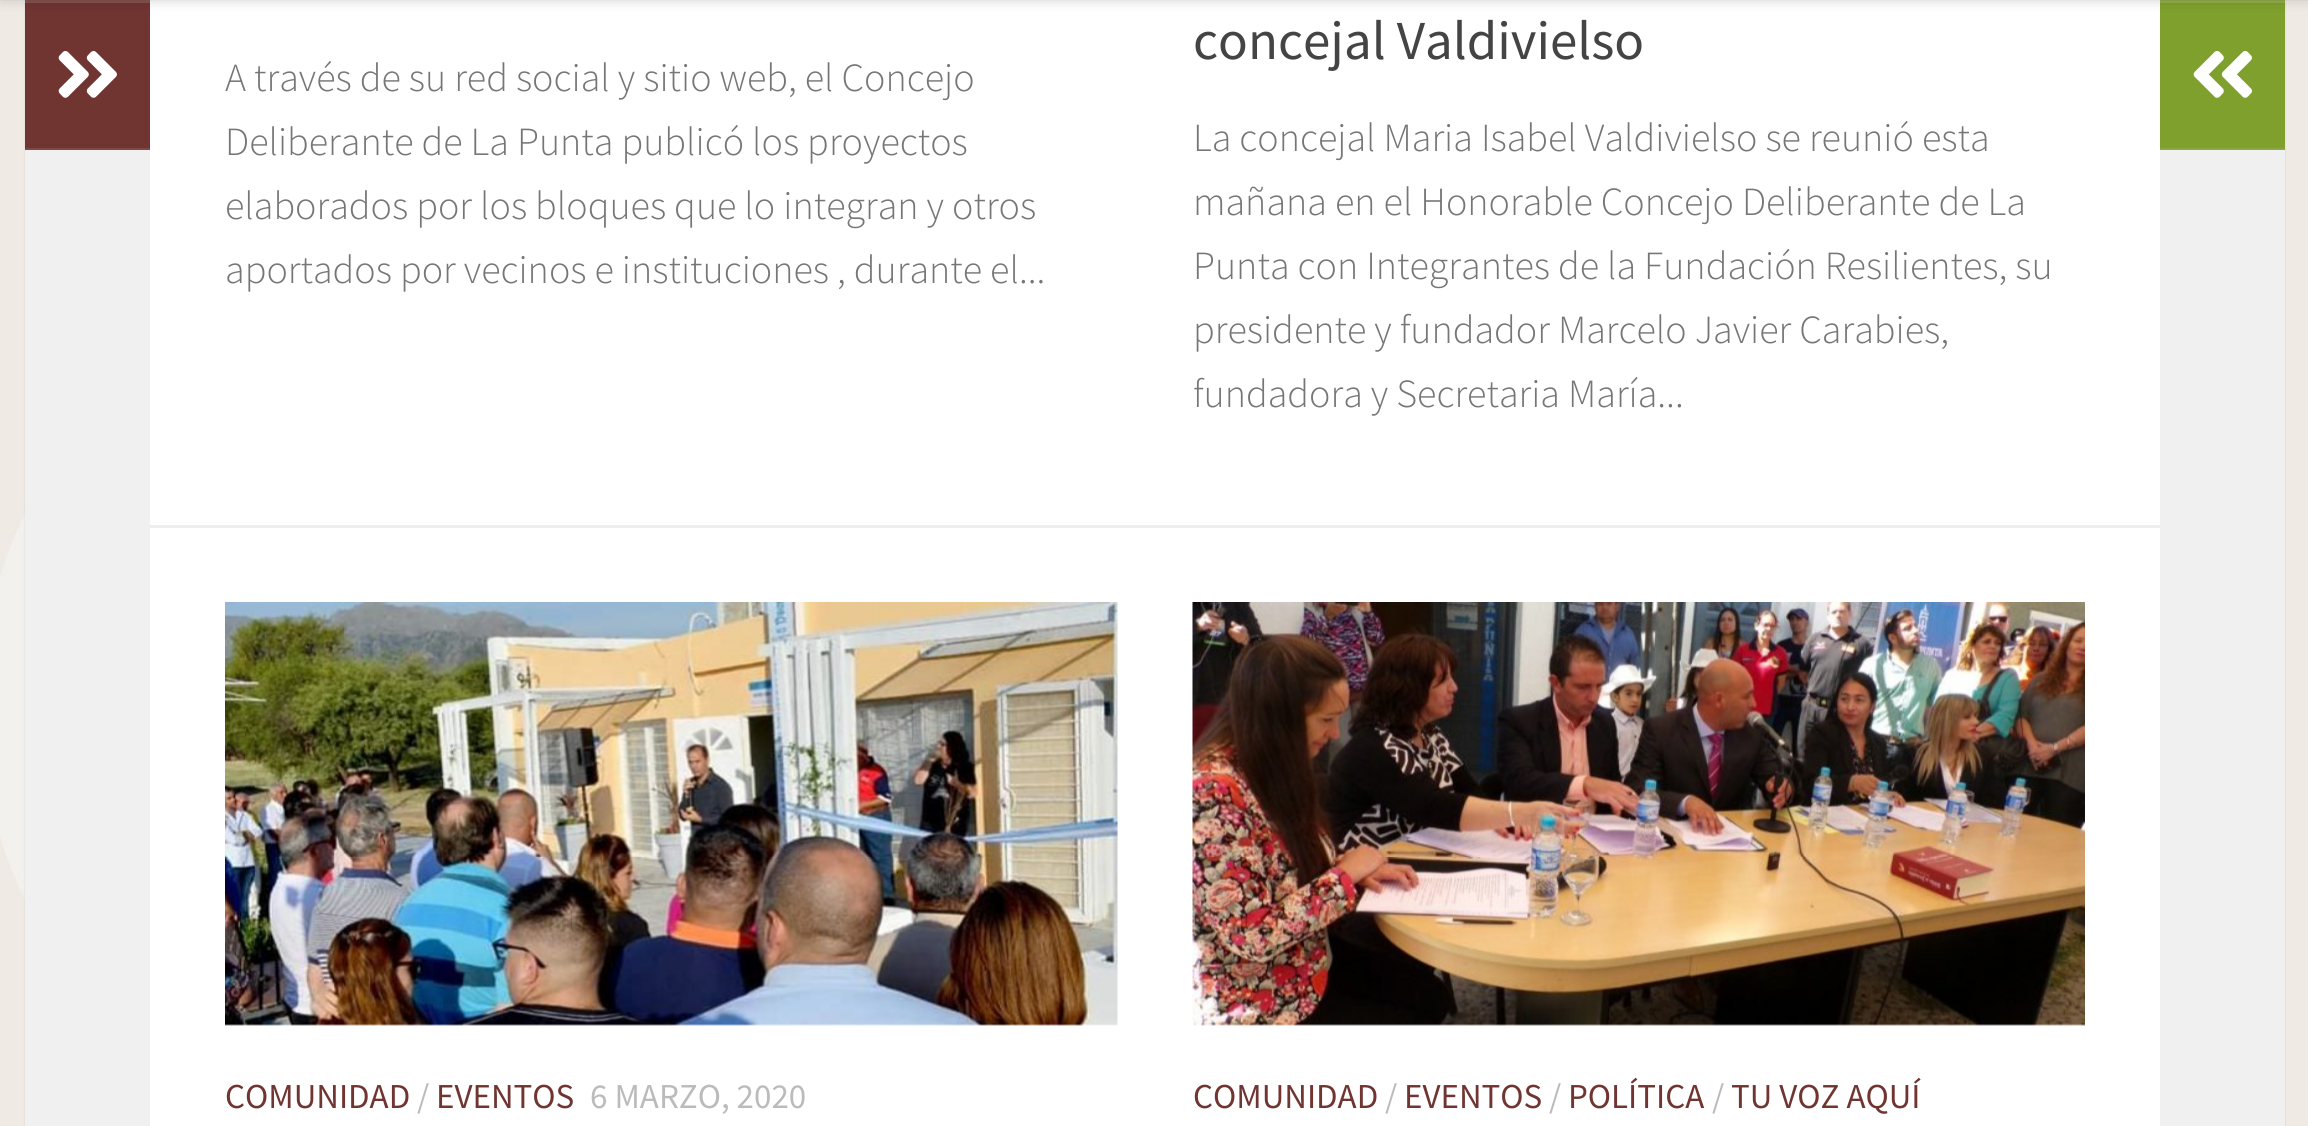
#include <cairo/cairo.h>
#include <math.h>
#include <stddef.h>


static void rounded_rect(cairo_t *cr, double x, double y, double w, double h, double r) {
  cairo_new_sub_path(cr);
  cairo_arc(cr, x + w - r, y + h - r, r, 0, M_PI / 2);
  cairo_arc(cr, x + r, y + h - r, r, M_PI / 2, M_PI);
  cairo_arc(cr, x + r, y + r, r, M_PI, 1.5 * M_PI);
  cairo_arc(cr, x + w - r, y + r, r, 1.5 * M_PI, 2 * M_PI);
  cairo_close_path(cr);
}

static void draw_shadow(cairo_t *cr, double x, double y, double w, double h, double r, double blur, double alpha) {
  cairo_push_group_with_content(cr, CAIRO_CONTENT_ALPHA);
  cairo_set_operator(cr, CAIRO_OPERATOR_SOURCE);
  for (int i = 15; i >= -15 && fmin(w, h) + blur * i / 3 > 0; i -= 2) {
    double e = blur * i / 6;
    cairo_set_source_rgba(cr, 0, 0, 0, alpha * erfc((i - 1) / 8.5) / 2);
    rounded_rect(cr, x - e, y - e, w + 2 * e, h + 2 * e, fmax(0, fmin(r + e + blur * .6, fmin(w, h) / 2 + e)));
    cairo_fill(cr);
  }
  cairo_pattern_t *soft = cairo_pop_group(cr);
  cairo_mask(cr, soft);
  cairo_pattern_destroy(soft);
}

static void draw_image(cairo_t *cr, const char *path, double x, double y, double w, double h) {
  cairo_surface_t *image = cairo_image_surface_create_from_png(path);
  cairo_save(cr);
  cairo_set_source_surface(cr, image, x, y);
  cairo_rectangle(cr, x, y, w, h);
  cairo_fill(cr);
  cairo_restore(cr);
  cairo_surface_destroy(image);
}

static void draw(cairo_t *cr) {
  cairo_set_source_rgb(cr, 1, 1, 1);
  cairo_paint(cr);
  draw_image(cr, "images/1.png", 0, 0, 2308, 1126);
  cairo_set_source_rgb(cr, 0, 0, 0);
  draw_shadow(cr, 25, -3, 2260, 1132, 0, 1, 0.1);
  cairo_set_source_rgb(cr, 1, 1, 1);
  cairo_rectangle(cr, 150, 0, 2010, 1126);
  cairo_fill(cr);
  cairo_set_source_rgb(cr, 112 / 255.0, 52 / 255.0, 49 / 255.0);
  cairo_rectangle(cr, 25, 0, 125, 150);
  cairo_fill(cr);
  cairo_set_source_rgb(cr, 127 / 255.0, 160 / 255.0, 44 / 255.0);
  cairo_rectangle(cr, 2160, 0, 125, 150);
  cairo_fill(cr);
  cairo_set_source_rgba(cr, 1, 1, 1, 0.15);
  cairo_rectangle(cr, 0, 0, 2308, 3);
  cairo_fill(cr);
  cairo_set_source_rgb(cr, 0, 0, 0);
  draw_shadow(cr, 0, -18, 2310, 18, 0, 6, 0.2);
  cairo_set_source_rgb(cr, 240 / 255.0, 240 / 255.0, 240 / 255.0);
  cairo_rectangle(cr, 25, 150, 125, 976);
  cairo_fill(cr);
  cairo_set_source_rgba(cr, 1, 1, 1, 0.1);
  cairo_rectangle(cr, 25, 148, 125, 2);
  cairo_fill(cr);
  draw_image(cr, "images/2.png", 58, 51, 59, 47);
  cairo_set_source_rgb(cr, 238 / 255.0, 238 / 255.0, 238 / 255.0);
  cairo_rectangle(cr, 150, 525, 2010, 3);
  cairo_fill(cr);
  draw_image(cr, "images/3.png", 225, 602, 893, 424);
  draw_image(cr, "images/4.png", 1192, 602, 893, 424);
  cairo_set_source_rgba(cr, 1, 1, 1, 0.1);
  cairo_rectangle(cr, 2160, 148, 125, 2);
  cairo_fill(cr);
  draw_image(cr, "images/5.png", 2193, 51, 59, 47);
  cairo_set_source_rgb(cr, 240 / 255.0, 240 / 255.0, 240 / 255.0);
  cairo_rectangle(cr, 2160, 150, 125, 976);
  cairo_fill(cr);
  cairo_select_font_face(cr, "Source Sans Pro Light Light", CAIRO_FONT_SLANT_NORMAL, CAIRO_FONT_WEIGHT_NORMAL);
  cairo_set_font_size(cr, 40);
  cairo_set_source_rgb(cr, 118 / 255.0, 118 / 255.0, 118 / 255.0);
  cairo_move_to(cr, 225, 91);
  cairo_show_text(cr, "A través de su red social y sitio web, el Concejo");
  cairo_move_to(cr, 225, 155);
  cairo_show_text(cr, "Deliberante de La Punta publicó los proyectos");
  cairo_move_to(cr, 225, 219);
  cairo_show_text(cr, "elaborados por los bloques que lo integran y otros");
  cairo_move_to(cr, 225, 283);
  cairo_show_text(cr, "aportados por vecinos e instituciones , durante el...");
  cairo_select_font_face(cr, "Source Sans Pro", CAIRO_FONT_SLANT_NORMAL, CAIRO_FONT_WEIGHT_NORMAL);
  cairo_set_font_size(cr, 55);
  cairo_set_source_rgb(cr, 68 / 255.0, 68 / 255.0, 68 / 255.0);
  cairo_move_to(cr, 1193, 59);
  cairo_show_text(cr, "concejal Valdivielso");
  cairo_select_font_face(cr, "Source Sans Pro Light Light", CAIRO_FONT_SLANT_NORMAL, CAIRO_FONT_WEIGHT_NORMAL);
  cairo_set_font_size(cr, 40);
  cairo_set_source_rgb(cr, 118 / 255.0, 118 / 255.0, 118 / 255.0);
  cairo_move_to(cr, 1193, 151);
  cairo_show_text(cr, "La concejal Maria Isabel Valdivielso se reunió esta");
  cairo_move_to(cr, 1193, 215);
  cairo_show_text(cr, "mañana en el Honorable Concejo Deliberante de La");
  cairo_move_to(cr, 1193, 279);
  cairo_show_text(cr, "Punta con Integrantes de la Fundación Resilientes, su");
  cairo_move_to(cr, 1193, 343);
  cairo_show_text(cr, "presidente y fundador Marcelo Javier Carabies,");
  cairo_move_to(cr, 1193, 407);
  cairo_show_text(cr, "fundadora y Secretaria María...");
  cairo_select_font_face(cr, "Source Sans Pro", CAIRO_FONT_SLANT_NORMAL, CAIRO_FONT_WEIGHT_NORMAL);
  cairo_set_font_size(cr, 35);
  cairo_set_source_rgb(cr, 112 / 255.0, 52 / 255.0, 49 / 255.0);
  cairo_move_to(cr, 225, 1108);
  cairo_show_text(cr, "COMUNIDAD");
  cairo_set_source_rgb(cr, 187 / 255.0, 187 / 255.0, 187 / 255.0);
  cairo_move_to(cr, 417, 1108);
  cairo_show_text(cr, "/");
  cairo_set_source_rgb(cr, 112 / 255.0, 52 / 255.0, 49 / 255.0);
  cairo_move_to(cr, 436, 1108);
  cairo_show_text(cr, "EVENTOS");
  cairo_set_source_rgb(cr, 187 / 255.0, 187 / 255.0, 187 / 255.0);
  cairo_move_to(cr, 590, 1108);
  cairo_show_text(cr, "6 MARZO, 2020");
  cairo_set_source_rgb(cr, 112 / 255.0, 52 / 255.0, 49 / 255.0);
  cairo_move_to(cr, 1193, 1108);
  cairo_show_text(cr, "COMUNIDAD");
  cairo_set_source_rgb(cr, 187 / 255.0, 187 / 255.0, 187 / 255.0);
  cairo_move_to(cr, 1385, 1108);
  cairo_show_text(cr, "/");
  cairo_set_source_rgb(cr, 112 / 255.0, 52 / 255.0, 49 / 255.0);
  cairo_move_to(cr, 1404, 1108);
  cairo_show_text(cr, "EVENTOS");
  cairo_set_source_rgb(cr, 187 / 255.0, 187 / 255.0, 187 / 255.0);
  cairo_move_to(cr, 1549, 1108);
  cairo_show_text(cr, "/");
  cairo_set_source_rgb(cr, 112 / 255.0, 52 / 255.0, 49 / 255.0);
  cairo_move_to(cr, 1568, 1108);
  cairo_show_text(cr, "POLÍTICA");
  cairo_set_source_rgb(cr, 187 / 255.0, 187 / 255.0, 187 / 255.0);
  cairo_move_to(cr, 1712, 1108);
  cairo_show_text(cr, "/");
  cairo_set_source_rgb(cr, 112 / 255.0, 52 / 255.0, 49 / 255.0);
  cairo_move_to(cr, 1731, 1108);
  cairo_show_text(cr, "TU VOZ AQUÍ");
}

int main(void) {
  cairo_surface_t *surface = cairo_image_surface_create(CAIRO_FORMAT_RGB24, 2308, 1126);
  cairo_t *cr = cairo_create(surface);
  cairo_font_options_t *options = cairo_font_options_create();
  cairo_font_options_set_hint_metrics(options, CAIRO_HINT_METRICS_OFF);
  cairo_font_options_set_hint_style(options, CAIRO_HINT_STYLE_NONE);
  cairo_set_font_options(cr, options);
  cairo_set_miter_limit(cr, 4);
  draw(cr);
  cairo_surface_write_to_png(surface, "out.png");
  cairo_font_options_destroy(options);
  cairo_destroy(cr);
  cairo_surface_destroy(surface);
  return 0;
}
